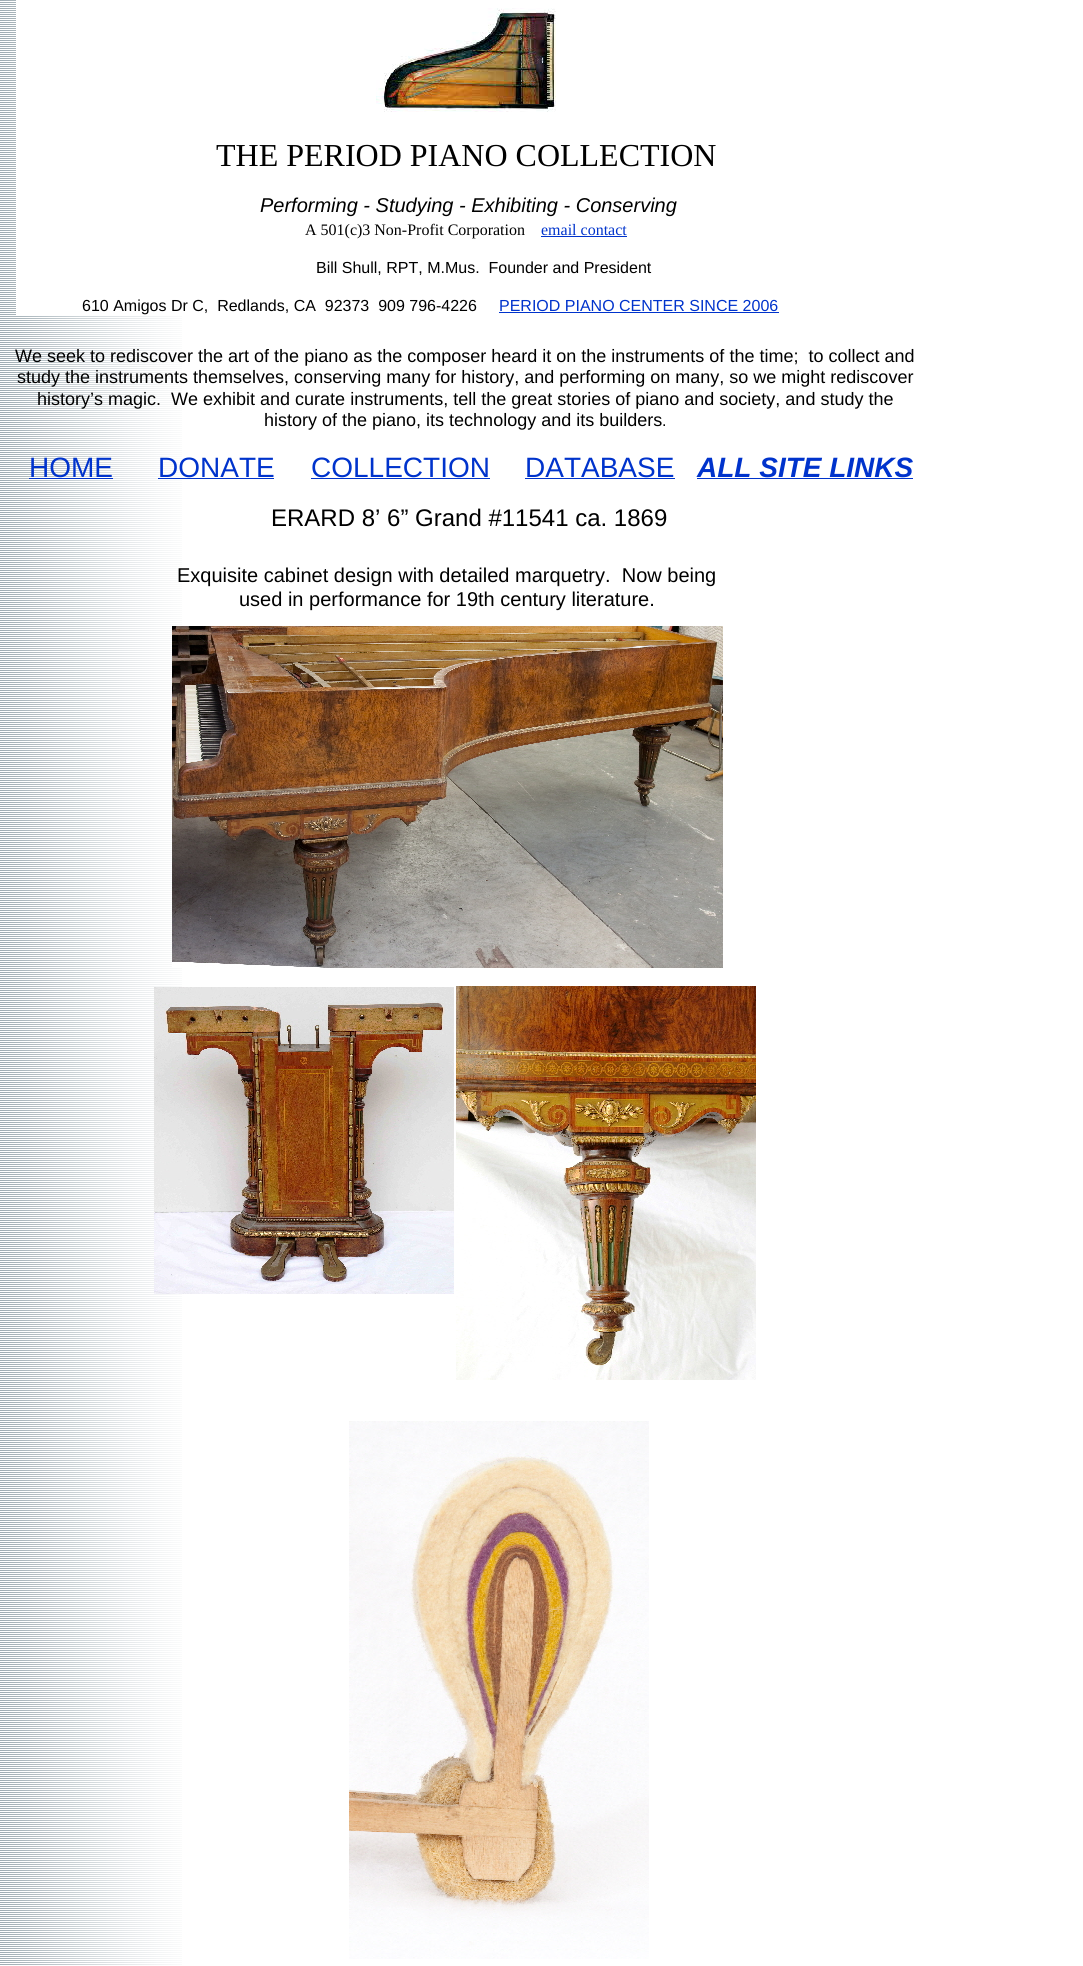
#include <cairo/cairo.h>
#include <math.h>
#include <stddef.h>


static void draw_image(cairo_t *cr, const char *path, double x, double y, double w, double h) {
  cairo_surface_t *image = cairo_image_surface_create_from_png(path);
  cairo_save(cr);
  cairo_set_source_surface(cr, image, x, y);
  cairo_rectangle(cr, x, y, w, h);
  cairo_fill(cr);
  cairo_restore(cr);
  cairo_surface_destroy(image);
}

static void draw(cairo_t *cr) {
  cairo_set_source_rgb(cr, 1, 1, 1);
  cairo_paint(cr);
  draw_image(cr, "images/1.png", 0, 0, 182, 1965);
  cairo_set_source_rgb(cr, 1, 1, 1);
  cairo_rectangle(cr, 16, 0, 166, 315);
  cairo_fill(cr);
  draw_image(cr, "images/2.png", 376, 8, 180, 104);
  cairo_set_source_rgb(cr, 0, 51 / 255.0, 204 / 255.0);
  cairo_rectangle(cr, 541, 236, 86, 1);
  cairo_fill(cr);
  cairo_rectangle(cr, 499, 312, 280, 1);
  cairo_fill(cr);
  cairo_rectangle(cr, 29, 478, 84, 1);
  cairo_fill(cr);
  cairo_rectangle(cr, 158, 478, 116, 1);
  cairo_fill(cr);
  cairo_rectangle(cr, 311, 478, 179, 1);
  cairo_fill(cr);
  cairo_rectangle(cr, 525, 478, 150, 1);
  cairo_fill(cr);
  cairo_rectangle(cr, 697, 478, 216, 1);
  cairo_fill(cr);
  draw_image(cr, "images/3.png", 172, 626, 551, 342);
  draw_image(cr, "images/4.png", 154, 987, 300, 307);
  draw_image(cr, "images/5.png", 456, 986, 300, 394);
  draw_image(cr, "images/6.png", 349, 1421, 300, 538);
  cairo_select_font_face(cr, "Liberation Serif", CAIRO_FONT_SLANT_NORMAL, CAIRO_FONT_WEIGHT_NORMAL);
  cairo_set_font_size(cr, 32);
  cairo_set_source_rgb(cr, 0, 0, 0);
  cairo_move_to(cr, 216, 166);
  cairo_show_text(cr, "THE PERIOD PIANO COLLECTION");
  cairo_select_font_face(cr, "Liberation Sans", CAIRO_FONT_SLANT_ITALIC, CAIRO_FONT_WEIGHT_NORMAL);
  cairo_set_font_size(cr, 20);
  cairo_move_to(cr, 260, 212);
  cairo_show_text(cr, "Performing - Studying - Exhibiting - Conserving");
  cairo_select_font_face(cr, "Liberation Serif", CAIRO_FONT_SLANT_NORMAL, CAIRO_FONT_WEIGHT_NORMAL);
  cairo_set_font_size(cr, 16);
  cairo_move_to(cr, 305, 235);
  cairo_show_text(cr, "A 501(c)3 Non-Profit Corporation");
  cairo_set_source_rgb(cr, 0, 51 / 255.0, 204 / 255.0);
  cairo_move_to(cr, 541, 235);
  cairo_show_text(cr, "email contact");
  cairo_select_font_face(cr, "Liberation Sans", CAIRO_FONT_SLANT_NORMAL, CAIRO_FONT_WEIGHT_NORMAL);
  cairo_set_source_rgb(cr, 0, 0, 0);
  cairo_move_to(cr, 316, 273);
  cairo_show_text(cr, "Bill Shull, RPT, M.Mus.  Founder and President");
  cairo_move_to(cr, 82, 311);
  cairo_show_text(cr, "610 Amigos Dr C,  Redlands, CA  92373  909 796-4226");
  cairo_set_source_rgb(cr, 0, 51 / 255.0, 204 / 255.0);
  cairo_move_to(cr, 499, 311);
  cairo_show_text(cr, "PERIOD PIANO CENTER SINCE 2006");
  cairo_set_font_size(cr, 18);
  cairo_set_source_rgb(cr, 0, 0, 0);
  cairo_move_to(cr, 15, 362);
  cairo_show_text(cr, "We seek to rediscover the art of the piano as the composer heard it on the instruments of the time;  to collect and");
  cairo_move_to(cr, 17, 383);
  cairo_show_text(cr, "study the instruments themselves, conserving many for history, and performing on many, so we might rediscover");
  cairo_move_to(cr, 37, 405);
  cairo_show_text(cr, "history’s magic.  We exhibit and curate instruments, tell the great stories of piano and society, and study the");
  cairo_move_to(cr, 264, 426);
  cairo_show_text(cr, "history of the piano, its technology and its builders");
  cairo_set_font_size(cr, 16);
  cairo_move_to(cr, 662, 426);
  cairo_show_text(cr, ".");
  cairo_set_font_size(cr, 28);
  cairo_set_source_rgb(cr, 0, 51 / 255.0, 204 / 255.0);
  cairo_move_to(cr, 29, 477);
  cairo_show_text(cr, "HOME");
  cairo_move_to(cr, 158, 477);
  cairo_show_text(cr, "DONATE");
  cairo_move_to(cr, 311, 477);
  cairo_show_text(cr, "COLLECTION");
  cairo_move_to(cr, 525, 477);
  cairo_show_text(cr, "DATABASE");
  cairo_set_font_size(cr, 24);
  cairo_set_source_rgb(cr, 0, 0, 0);
  cairo_move_to(cr, 271, 526);
  cairo_show_text(cr, "ERARD 8’ 6” Grand #11541 ca. 1869");
  cairo_select_font_face(cr, "Liberation Sans", CAIRO_FONT_SLANT_ITALIC, CAIRO_FONT_WEIGHT_BOLD);
  cairo_set_font_size(cr, 28);
  cairo_set_source_rgb(cr, 0, 51 / 255.0, 204 / 255.0);
  cairo_move_to(cr, 697, 477);
  cairo_show_text(cr, "ALL SITE LINKS");
  cairo_select_font_face(cr, "Liberation Sans", CAIRO_FONT_SLANT_NORMAL, CAIRO_FONT_WEIGHT_NORMAL);
  cairo_set_font_size(cr, 20);
  cairo_set_source_rgb(cr, 0, 0, 0);
  cairo_move_to(cr, 177, 582);
  cairo_show_text(cr, "Exquisite cabinet design with detailed marquetry.  Now being");
  cairo_move_to(cr, 239, 606);
  cairo_show_text(cr, "used in performance for 19th century literature.");
}

int main(void) {
  cairo_surface_t *surface = cairo_image_surface_create(CAIRO_FORMAT_RGB24, 1083, 1966);
  cairo_t *cr = cairo_create(surface);
  cairo_font_options_t *options = cairo_font_options_create();
  cairo_font_options_set_hint_metrics(options, CAIRO_HINT_METRICS_OFF);
  cairo_font_options_set_hint_style(options, CAIRO_HINT_STYLE_NONE);
  cairo_set_font_options(cr, options);
  cairo_set_miter_limit(cr, 4);
  draw(cr);
  cairo_surface_write_to_png(surface, "out.png");
  cairo_font_options_destroy(options);
  cairo_destroy(cr);
  cairo_surface_destroy(surface);
  return 0;
}
